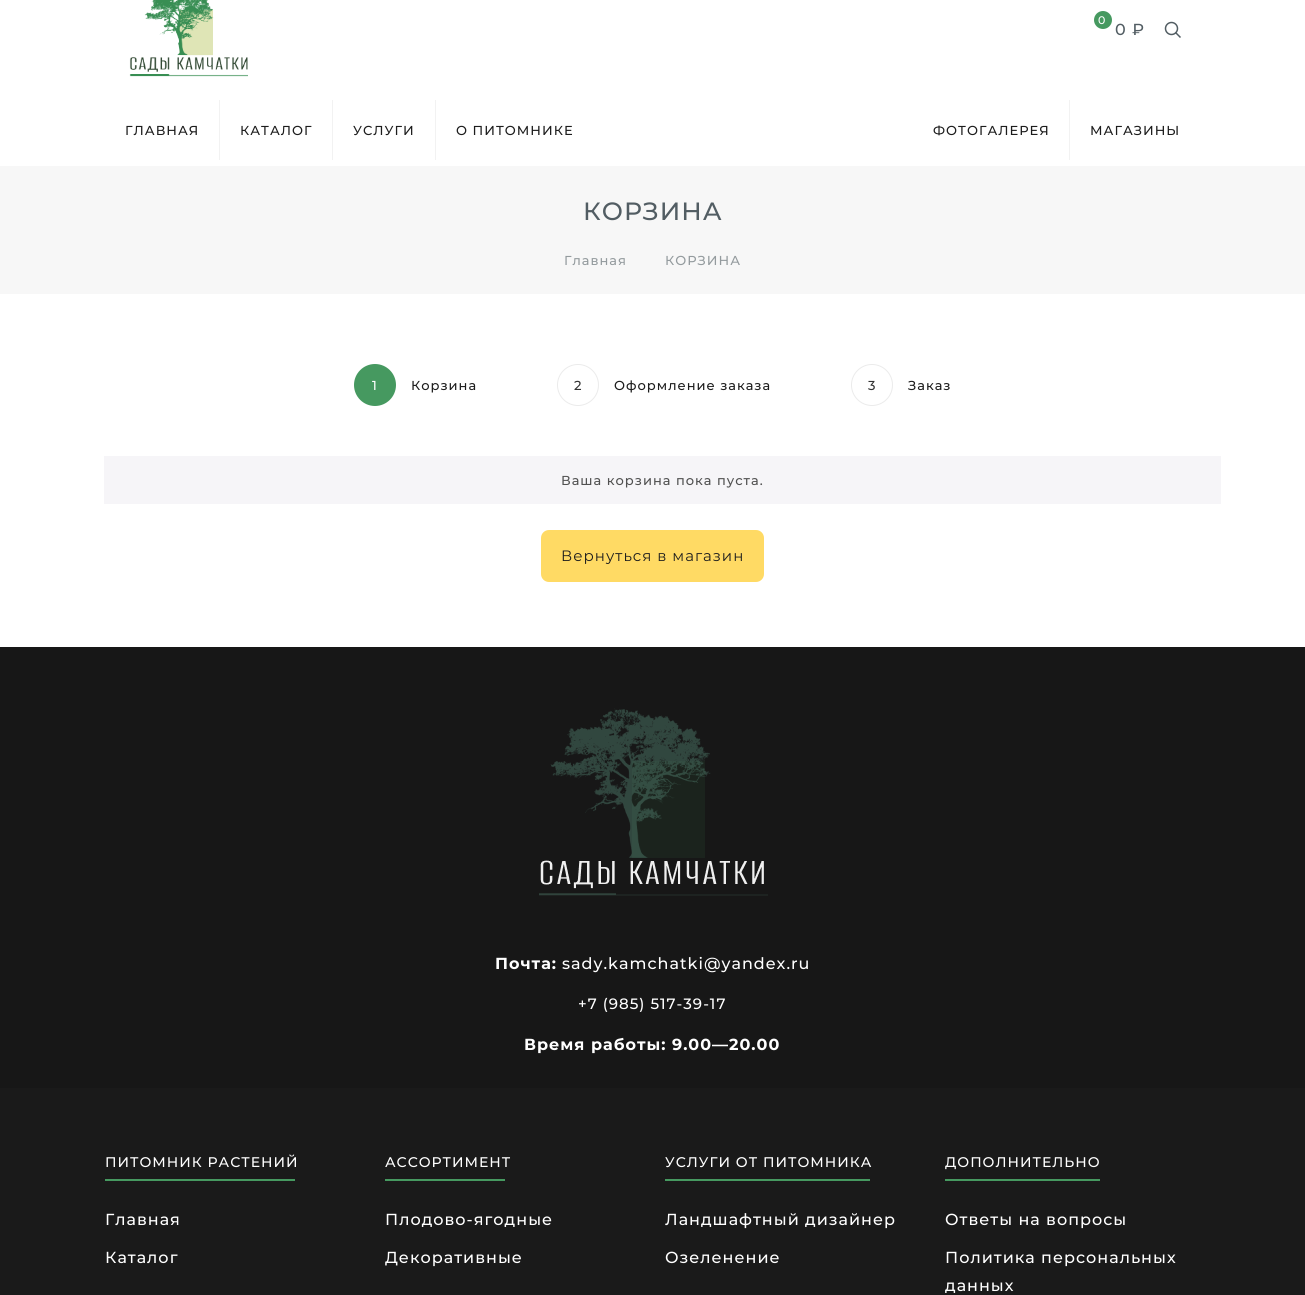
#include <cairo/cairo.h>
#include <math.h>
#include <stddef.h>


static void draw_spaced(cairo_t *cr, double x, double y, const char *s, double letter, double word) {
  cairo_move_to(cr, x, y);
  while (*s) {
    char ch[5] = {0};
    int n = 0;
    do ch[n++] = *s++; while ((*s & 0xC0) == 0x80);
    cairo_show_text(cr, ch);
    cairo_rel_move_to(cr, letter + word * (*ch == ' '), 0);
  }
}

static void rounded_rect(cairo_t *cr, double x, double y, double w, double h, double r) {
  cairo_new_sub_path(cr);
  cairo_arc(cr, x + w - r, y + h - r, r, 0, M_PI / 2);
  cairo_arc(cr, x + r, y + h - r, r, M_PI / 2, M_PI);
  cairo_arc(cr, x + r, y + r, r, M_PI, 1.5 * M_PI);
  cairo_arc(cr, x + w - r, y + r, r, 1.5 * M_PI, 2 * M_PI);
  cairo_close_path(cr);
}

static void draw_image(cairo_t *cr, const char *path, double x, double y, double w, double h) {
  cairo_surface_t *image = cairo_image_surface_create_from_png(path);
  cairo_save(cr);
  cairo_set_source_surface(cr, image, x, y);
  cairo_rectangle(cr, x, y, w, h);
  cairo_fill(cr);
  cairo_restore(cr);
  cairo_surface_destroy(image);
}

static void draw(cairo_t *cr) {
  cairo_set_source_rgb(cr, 1, 1, 1);
  cairo_paint(cr);
  draw_image(cr, "images/1.png", 129, 0, 119, 77);
  cairo_set_source_rgb(cr, 70 / 255.0, 153 / 255.0, 96 / 255.0);
  cairo_arc(cr, 1103, 20, 9, 0, 2 * M_PI);
  cairo_fill(cr);
  cairo_arc(cr, 1171.5, 28.5, 6, 0, 2 * M_PI);
  cairo_set_source_rgb(cr, 82 / 255.0, 93 / 255.0, 99 / 255.0);
  cairo_set_line_width(cr, 1.5);
  cairo_stroke(cr);
  cairo_new_path(cr);
  cairo_move_to(cr, 1175.5, 32.5);
  cairo_line_to(cr, 1180.5, 37.5);
  cairo_stroke(cr);
  cairo_set_source_rgb(cr, 242 / 255.0, 242 / 255.0, 242 / 255.0);
  cairo_rectangle(cr, 219, 100, 1, 60);
  cairo_fill(cr);
  cairo_rectangle(cr, 332, 100, 1, 60);
  cairo_fill(cr);
  cairo_rectangle(cr, 435, 100, 1, 60);
  cairo_fill(cr);
  cairo_rectangle(cr, 1069, 100, 1, 60);
  cairo_fill(cr);
  cairo_set_source_rgb(cr, 247 / 255.0, 247 / 255.0, 247 / 255.0);
  cairo_rectangle(cr, 0, 166, 1305, 128);
  cairo_fill(cr);
  cairo_set_source_rgb(cr, 70 / 255.0, 153 / 255.0, 96 / 255.0);
  cairo_arc(cr, 375, 385, 21, 0, 2 * M_PI);
  cairo_fill(cr);
  cairo_arc(cr, 578, 385, 20.5, 0, 2 * M_PI);
  cairo_set_source_rgb(cr, 235 / 255.0, 235 / 255.0, 235 / 255.0);
  cairo_set_line_width(cr, 1);
  cairo_stroke(cr);
  cairo_arc(cr, 872, 385, 20.5, 0, 2 * M_PI);
  cairo_stroke(cr);
  cairo_set_source_rgb(cr, 246 / 255.0, 245 / 255.0, 248 / 255.0);
  cairo_rectangle(cr, 104, 456, 1117, 48);
  cairo_fill(cr);
  cairo_set_source_rgb(cr, 1, 218 / 255.0, 100 / 255.0);
  rounded_rect(cr, 541, 530, 223, 52, 8);
  cairo_fill(cr);
  cairo_set_source_rgb(cr, 26 / 255.0, 26 / 255.0, 26 / 255.0);
  cairo_rectangle(cr, 0, 1088, 1305, 207);
  cairo_fill(cr);
  cairo_set_source_rgb(cr, 23 / 255.0, 23 / 255.0, 23 / 255.0);
  cairo_rectangle(cr, 0, 647, 1305, 441);
  cairo_fill(cr);
  draw_image(cr, "images/2.png", 539, 708, 229, 188);
  cairo_set_source_rgb(cr, 70 / 255.0, 153 / 255.0, 96 / 255.0);
  cairo_rectangle(cr, 105, 1179, 190, 2);
  cairo_fill(cr);
  cairo_rectangle(cr, 385, 1179, 120, 2);
  cairo_fill(cr);
  cairo_rectangle(cr, 665, 1179, 205, 2);
  cairo_fill(cr);
  cairo_rectangle(cr, 945, 1179, 155, 2);
  cairo_fill(cr);
  cairo_select_font_face(cr, "Montserrat Medium", CAIRO_FONT_SLANT_NORMAL, CAIRO_FONT_WEIGHT_NORMAL);
  cairo_set_font_size(cr, 11);
  cairo_set_source_rgb(cr, 1, 1, 1);
  draw_spaced(cr, 1098, 24, "0", 1, 0);
  cairo_set_font_size(cr, 16);
  cairo_set_source_rgb(cr, 82 / 255.0, 93 / 255.0, 99 / 255.0);
  draw_spaced(cr, 1115, 35, "0 ₽", 1, 0);
  cairo_set_font_size(cr, 13);
  cairo_set_source_rgb(cr, 29 / 255.0, 29 / 255.0, 29 / 255.0);
  draw_spaced(cr, 125, 135, "ГЛАВНАЯ", 1, 0);
  draw_spaced(cr, 240, 135, "КАТАЛОГ", 1, 0);
  draw_spaced(cr, 353, 135, "УСЛУГИ", 1, 0);
  draw_spaced(cr, 456, 135, "О ПИТОМНИКЕ", 1, 0);
  draw_spaced(cr, 933, 135, "ФОТОГАЛЕРЕЯ", 1, 0);
  draw_spaced(cr, 1090, 135, "МАГАЗИНЫ", 1, 0);
  cairo_set_font_size(cr, 25);
  cairo_set_source_rgb(cr, 82 / 255.0, 93 / 255.0, 99 / 255.0);
  draw_spaced(cr, 583, 220, "КОРЗИНА", 1, 0);
  cairo_set_font_size(cr, 13);
  cairo_set_source_rgb(cr, 148 / 255.0, 155 / 255.0, 158 / 255.0);
  draw_spaced(cr, 564, 265, "Главная", 1, 0);
  draw_spaced(cr, 665, 265, "КОРЗИНА", 1, 0);
  cairo_set_source_rgb(cr, 1, 1, 1);
  draw_spaced(cr, 372, 390, "1", 1, 0);
  cairo_set_source_rgb(cr, 29 / 255.0, 29 / 255.0, 29 / 255.0);
  draw_spaced(cr, 411, 390, "Корзина", 1, 0);
  cairo_set_source_rgb(cr, 51 / 255.0, 51 / 255.0, 51 / 255.0);
  draw_spaced(cr, 574, 390, "2", 1, 0);
  cairo_set_source_rgb(cr, 29 / 255.0, 29 / 255.0, 29 / 255.0);
  draw_spaced(cr, 614, 390, "Оформление заказа", 1, 0);
  cairo_set_source_rgb(cr, 51 / 255.0, 51 / 255.0, 51 / 255.0);
  draw_spaced(cr, 868, 390, "3", 1, 0);
  cairo_set_source_rgb(cr, 29 / 255.0, 29 / 255.0, 29 / 255.0);
  draw_spaced(cr, 908, 390, "Заказ", 1, 0);
  cairo_set_source_rgb(cr, 81 / 255.0, 81 / 255.0, 81 / 255.0);
  draw_spaced(cr, 561, 485, "Ваша корзина пока пуста.", 1, 0);
  cairo_select_font_face(cr, "Montserrat Thin", CAIRO_FONT_SLANT_NORMAL, CAIRO_FONT_WEIGHT_NORMAL);
  cairo_set_font_size(cr, 15);
  cairo_set_source_rgb(cr, 29 / 255.0, 29 / 255.0, 29 / 255.0);
  draw_spaced(cr, 561, 561, "Вернуться в магазин", 1, 0);
  cairo_select_font_face(cr, "Montserrat", CAIRO_FONT_SLANT_NORMAL, CAIRO_FONT_WEIGHT_BOLD);
  cairo_set_font_size(cr, 16);
  cairo_set_source_rgb(cr, 1, 1, 1);
  draw_spaced(cr, 495, 969, "Почта:", 1, 0);
  cairo_select_font_face(cr, "Montserrat Medium", CAIRO_FONT_SLANT_NORMAL, CAIRO_FONT_WEIGHT_NORMAL);
  draw_spaced(cr, 562, 969, "sady.kamchatki@yandex.ru", 1, 0);
  cairo_set_font_size(cr, 15);
  draw_spaced(cr, 578, 1009, "+7 (985) 517-39-17", 1, 0);
  cairo_select_font_face(cr, "Montserrat", CAIRO_FONT_SLANT_NORMAL, CAIRO_FONT_WEIGHT_BOLD);
  cairo_set_font_size(cr, 16);
  draw_spaced(cr, 524, 1050, "Время работы: 9.00—20.00", 1, 0);
  cairo_select_font_face(cr, "Montserrat Medium", CAIRO_FONT_SLANT_NORMAL, CAIRO_FONT_WEIGHT_NORMAL);
  cairo_set_font_size(cr, 14);
  draw_spaced(cr, 105, 1167, "ПИТОМНИК РАСТЕНИЙ", 1, 0);
  cairo_set_font_size(cr, 16);
  draw_spaced(cr, 105, 1225, "Главная", 1, 0);
  draw_spaced(cr, 105, 1263, "Каталог", 1, 0);
  cairo_set_font_size(cr, 14);
  draw_spaced(cr, 385, 1167, "АССОРТИМЕНТ", 1, 0);
  cairo_set_font_size(cr, 16);
  draw_spaced(cr, 385, 1225, "Плодово-ягодные", 1, 0);
  draw_spaced(cr, 385, 1263, "Декоративные", 1, 0);
  cairo_set_font_size(cr, 14);
  draw_spaced(cr, 665, 1167, "УСЛУГИ ОТ ПИТОМНИКА", 1, 0);
  cairo_set_font_size(cr, 16);
  draw_spaced(cr, 665, 1225, "Ландшафтный дизайнер", 1, 0);
  draw_spaced(cr, 665, 1263, "Озеленение", 1, 0);
  cairo_set_font_size(cr, 14);
  draw_spaced(cr, 945, 1167, "ДОПОЛНИТЕЛЬНО", 1, 0);
  cairo_set_font_size(cr, 16);
  draw_spaced(cr, 945, 1225, "Ответы на вопросы", 1, 0);
  draw_spaced(cr, 945, 1263, "Политика персональных", 1, 0);
  draw_spaced(cr, 945, 1291, "данных", 1, 0);
}

int main(void) {
  cairo_surface_t *surface = cairo_image_surface_create(CAIRO_FORMAT_RGB24, 1305, 1295);
  cairo_t *cr = cairo_create(surface);
  cairo_font_options_t *options = cairo_font_options_create();
  cairo_font_options_set_hint_metrics(options, CAIRO_HINT_METRICS_OFF);
  cairo_font_options_set_hint_style(options, CAIRO_HINT_STYLE_NONE);
  cairo_set_font_options(cr, options);
  cairo_set_miter_limit(cr, 4);
  draw(cr);
  cairo_surface_write_to_png(surface, "out.png");
  cairo_font_options_destroy(options);
  cairo_destroy(cr);
  cairo_surface_destroy(surface);
  return 0;
}
